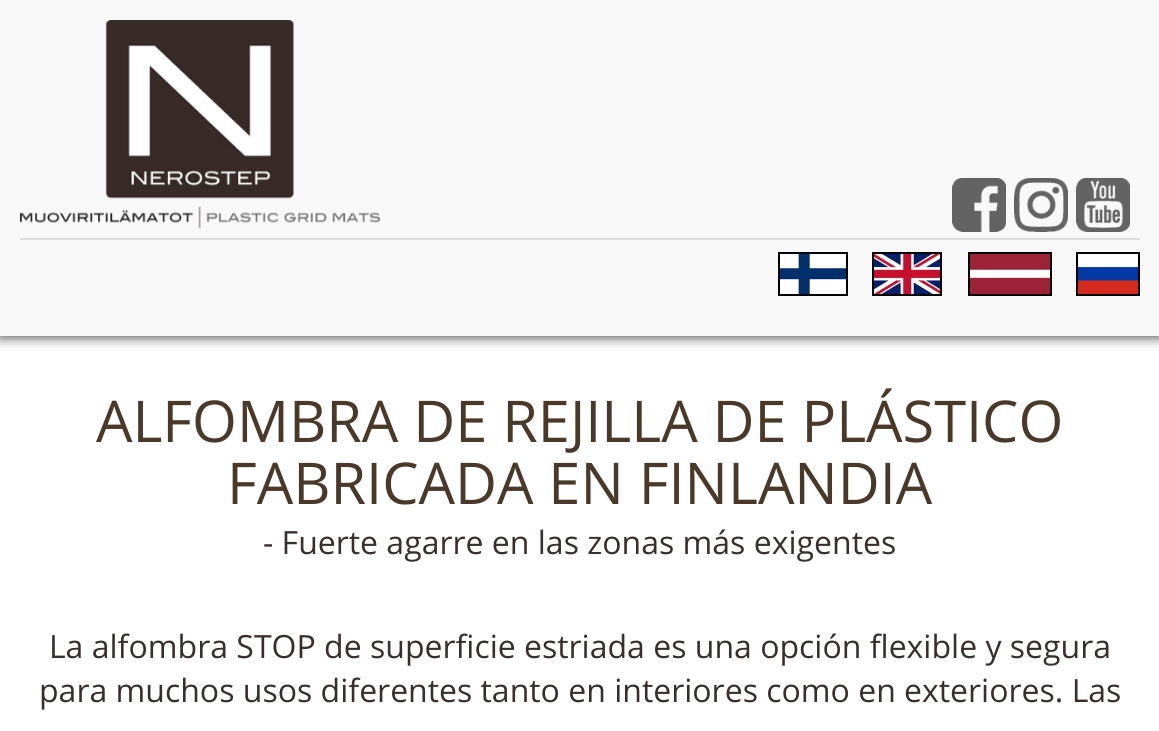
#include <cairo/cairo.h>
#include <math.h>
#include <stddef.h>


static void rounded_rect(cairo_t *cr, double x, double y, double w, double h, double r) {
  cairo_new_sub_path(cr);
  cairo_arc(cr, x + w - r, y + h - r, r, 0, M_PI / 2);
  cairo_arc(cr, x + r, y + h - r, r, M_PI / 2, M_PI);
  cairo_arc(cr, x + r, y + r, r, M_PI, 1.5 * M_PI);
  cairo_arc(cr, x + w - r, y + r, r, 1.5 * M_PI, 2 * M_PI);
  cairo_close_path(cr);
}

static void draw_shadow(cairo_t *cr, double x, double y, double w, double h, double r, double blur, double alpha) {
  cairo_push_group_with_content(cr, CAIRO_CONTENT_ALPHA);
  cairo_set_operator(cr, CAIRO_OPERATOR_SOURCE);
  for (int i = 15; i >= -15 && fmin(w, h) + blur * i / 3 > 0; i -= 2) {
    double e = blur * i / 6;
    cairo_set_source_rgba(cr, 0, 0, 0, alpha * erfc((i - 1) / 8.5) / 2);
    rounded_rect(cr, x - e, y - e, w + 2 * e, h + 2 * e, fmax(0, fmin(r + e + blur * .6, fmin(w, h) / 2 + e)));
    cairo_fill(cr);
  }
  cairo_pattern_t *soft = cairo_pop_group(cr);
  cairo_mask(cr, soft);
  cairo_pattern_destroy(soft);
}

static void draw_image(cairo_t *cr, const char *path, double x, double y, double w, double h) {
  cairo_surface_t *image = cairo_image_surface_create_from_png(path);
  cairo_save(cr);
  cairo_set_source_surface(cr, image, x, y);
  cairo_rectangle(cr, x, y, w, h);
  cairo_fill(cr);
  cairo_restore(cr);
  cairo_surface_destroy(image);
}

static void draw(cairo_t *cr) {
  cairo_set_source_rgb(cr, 1, 1, 1);
  cairo_paint(cr);
  cairo_set_source_rgb(cr, 17 / 255.0, 17 / 255.0, 17 / 255.0);
  draw_shadow(cr, 0, 2, 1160, 336, 0, 6, 0.7);
  cairo_set_source_rgb(cr, 248 / 255.0, 248 / 255.0, 248 / 255.0);
  cairo_rectangle(cr, 0, 0, 1159, 336);
  cairo_fill(cr);
  cairo_set_source_rgb(cr, 221 / 255.0, 221 / 255.0, 221 / 255.0);
  cairo_rectangle(cr, 20, 238, 1120, 2);
  cairo_fill(cr);
  draw_image(cr, "images/1.png", 20, 20, 360, 208);
  draw_image(cr, "images/2.png", 952, 178, 54, 54);
  draw_image(cr, "images/3.png", 1014, 178, 54, 54);
  draw_image(cr, "images/4.png", 1076, 178, 54, 54);
  cairo_rectangle(cr, 779, 253, 68, 42);
  cairo_set_source_rgb(cr, 0, 0, 0);
  cairo_stroke(cr);
  cairo_rectangle(cr, 873, 253, 68, 42);
  cairo_stroke(cr);
  cairo_rectangle(cr, 969, 253, 82, 42);
  cairo_stroke(cr);
  cairo_rectangle(cr, 1077, 253, 62, 42);
  cairo_stroke(cr);
  draw_image(cr, "images/5.png", 780, 254, 66, 40);
  draw_image(cr, "images/6.png", 874, 254, 66, 40);
  draw_image(cr, "images/7.png", 970, 254, 80, 40);
  draw_image(cr, "images/8.png", 1078, 254, 60, 40);
  cairo_select_font_face(cr, "Open Sans", CAIRO_FONT_SLANT_NORMAL, CAIRO_FONT_WEIGHT_NORMAL);
  cairo_set_font_size(cr, 57.6);
  cairo_set_source_rgb(cr, 74 / 255.0, 56 / 255.0, 40 / 255.0);
  cairo_move_to(cr, 96, 442);
  cairo_show_text(cr, "ALFOMBRA DE REJILLA DE PLÁSTICO");
  cairo_move_to(cr, 227, 504);
  cairo_show_text(cr, "FABRICADA EN FINLANDIA");
  cairo_set_font_size(cr, 32);
  cairo_set_source_rgb(cr, 54 / 255.0, 47 / 255.0, 45 / 255.0);
  cairo_move_to(cr, 263, 554);
  cairo_show_text(cr, "- Fuerte agarre en las zonas más exigentes");
  cairo_move_to(cr, 49, 658);
  cairo_show_text(cr, "La alfombra STOP de superficie estriada es una opción flexible y segura");
  cairo_move_to(cr, 39, 702);
  cairo_show_text(cr, "para muchos usos diferentes tanto en interiores como en exteriores. Las");
}

int main(void) {
  cairo_surface_t *surface = cairo_image_surface_create(CAIRO_FORMAT_RGB24, 1159, 731);
  cairo_t *cr = cairo_create(surface);
  cairo_font_options_t *options = cairo_font_options_create();
  cairo_font_options_set_hint_metrics(options, CAIRO_HINT_METRICS_OFF);
  cairo_font_options_set_hint_style(options, CAIRO_HINT_STYLE_NONE);
  cairo_set_font_options(cr, options);
  cairo_set_miter_limit(cr, 4);
  draw(cr);
  cairo_surface_write_to_png(surface, "out.png");
  cairo_font_options_destroy(options);
  cairo_destroy(cr);
  cairo_surface_destroy(surface);
  return 0;
}
